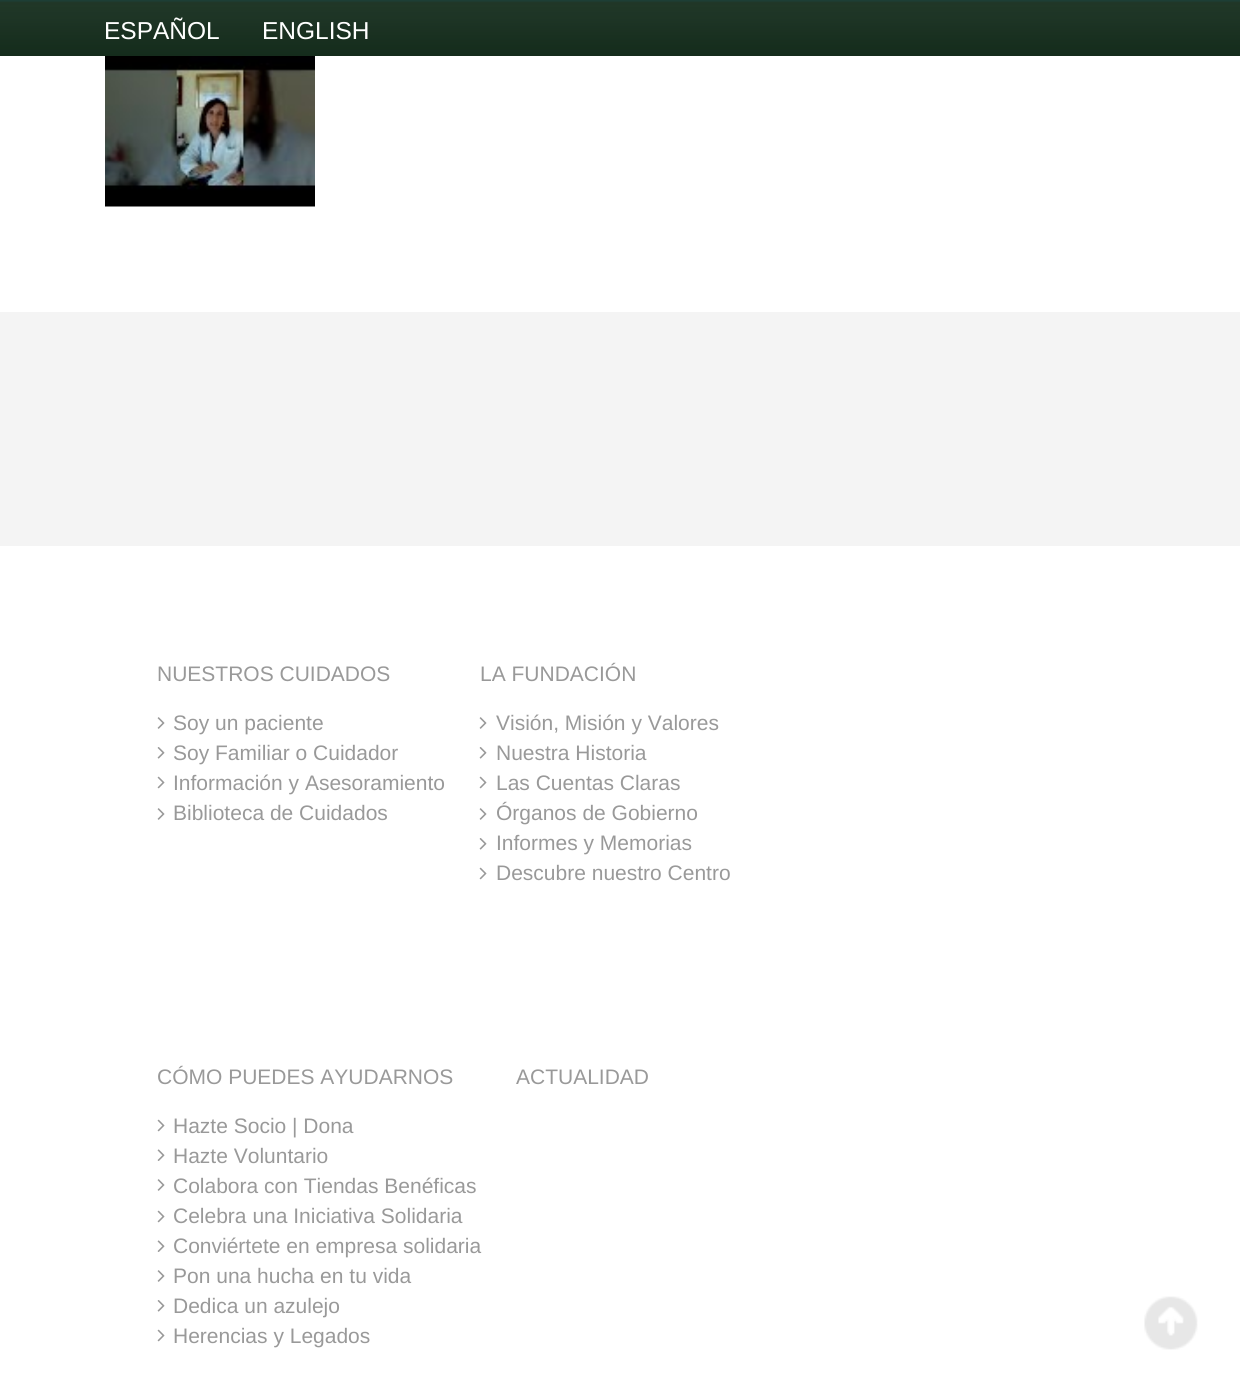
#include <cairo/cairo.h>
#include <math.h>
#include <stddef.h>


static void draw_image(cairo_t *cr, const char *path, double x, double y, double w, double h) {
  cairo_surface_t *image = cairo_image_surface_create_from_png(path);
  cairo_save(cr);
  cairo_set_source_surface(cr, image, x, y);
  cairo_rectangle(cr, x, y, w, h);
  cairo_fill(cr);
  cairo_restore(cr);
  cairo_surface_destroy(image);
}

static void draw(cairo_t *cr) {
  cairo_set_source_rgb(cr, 1, 1, 1);
  cairo_paint(cr);
  draw_image(cr, "images/1.png", 0, 0, 1240, 56);
  draw_image(cr, "images/2.png", 105, 56, 210, 151);
  cairo_set_source_rgb(cr, 244 / 255.0, 244 / 255.0, 244 / 255.0);
  cairo_rectangle(cr, 0, 312, 1240, 234);
  cairo_fill(cr);
  draw_image(cr, "images/3.png", 157, 717, 8, 12);
  draw_image(cr, "images/4.png", 157, 747, 8, 12);
  draw_image(cr, "images/5.png", 157, 776, 8, 13);
  draw_image(cr, "images/3.png", 157, 808, 8, 12);
  draw_image(cr, "images/3.png", 479, 717, 8, 12);
  draw_image(cr, "images/4.png", 479, 747, 8, 12);
  draw_image(cr, "images/5.png", 479, 776, 8, 13);
  draw_image(cr, "images/3.png", 479, 808, 8, 12);
  draw_image(cr, "images/4.png", 479, 838, 8, 12);
  draw_image(cr, "images/5.png", 479, 867, 8, 13);
  draw_image(cr, "images/5.png", 157, 1119, 8, 13);
  draw_image(cr, "images/6.png", 157, 1149, 8, 12);
  draw_image(cr, "images/3.png", 157, 1179, 8, 12);
  draw_image(cr, "images/5.png", 157, 1210, 8, 13);
  draw_image(cr, "images/6.png", 157, 1240, 8, 12);
  draw_image(cr, "images/3.png", 157, 1270, 8, 12);
  draw_image(cr, "images/4.png", 157, 1300, 8, 12);
  draw_image(cr, "images/5.png", 157, 1329, 8, 13);
  draw_image(cr, "images/7.png", 1144, 1296, 54, 54);
  cairo_select_font_face(cr, "Liberation Sans", CAIRO_FONT_SLANT_NORMAL, CAIRO_FONT_WEIGHT_NORMAL);
  cairo_set_font_size(cr, 24.5);
  cairo_set_source_rgb(cr, 1, 1, 1);
  cairo_move_to(cr, 104, 39);
  cairo_show_text(cr, "ESPAÑOL");
  cairo_move_to(cr, 262, 39);
  cairo_show_text(cr, "ENGLISH");
  cairo_set_font_size(cr, 21);
  cairo_set_source_rgb(cr, 153 / 255.0, 153 / 255.0, 153 / 255.0);
  cairo_move_to(cr, 157, 681);
  cairo_show_text(cr, "NUESTROS CUIDADOS");
  cairo_move_to(cr, 173, 730);
  cairo_show_text(cr, "Soy un paciente");
  cairo_move_to(cr, 173, 760);
  cairo_show_text(cr, "Soy Familiar o Cuidador");
  cairo_move_to(cr, 173, 790);
  cairo_show_text(cr, "Información y Asesoramiento");
  cairo_move_to(cr, 173, 820);
  cairo_show_text(cr, "Biblioteca de Cuidados");
  cairo_move_to(cr, 480, 681);
  cairo_show_text(cr, "LA FUNDACIÓN");
  cairo_move_to(cr, 496, 730);
  cairo_show_text(cr, "Visión, Misión y Valores");
  cairo_move_to(cr, 496, 760);
  cairo_show_text(cr, "Nuestra Historia");
  cairo_move_to(cr, 496, 790);
  cairo_show_text(cr, "Las Cuentas Claras");
  cairo_move_to(cr, 496, 820);
  cairo_show_text(cr, "Órganos de Gobierno");
  cairo_move_to(cr, 496, 850);
  cairo_show_text(cr, "Informes y Memorias");
  cairo_move_to(cr, 496, 880);
  cairo_show_text(cr, "Descubre nuestro Centro");
  cairo_move_to(cr, 157, 1084);
  cairo_show_text(cr, "CÓMO PUEDES AYUDARNOS");
  cairo_move_to(cr, 173, 1133);
  cairo_show_text(cr, "Hazte Socio | Dona");
  cairo_move_to(cr, 173, 1163);
  cairo_show_text(cr, "Hazte Voluntario");
  cairo_move_to(cr, 173, 1193);
  cairo_show_text(cr, "Colabora con Tiendas Benéficas");
  cairo_move_to(cr, 173, 1223);
  cairo_show_text(cr, "Celebra una Iniciativa Solidaria");
  cairo_move_to(cr, 173, 1253);
  cairo_show_text(cr, "Conviértete en empresa solidaria");
  cairo_move_to(cr, 173, 1283);
  cairo_show_text(cr, "Pon una hucha en tu vida");
  cairo_move_to(cr, 173, 1313);
  cairo_show_text(cr, "Dedica un azulejo");
  cairo_move_to(cr, 173, 1343);
  cairo_show_text(cr, "Herencias y Legados");
  cairo_move_to(cr, 516, 1084);
  cairo_show_text(cr, "ACTUALIDAD");
}

int main(void) {
  cairo_surface_t *surface = cairo_image_surface_create(CAIRO_FORMAT_RGB24, 1240, 1395);
  cairo_t *cr = cairo_create(surface);
  cairo_font_options_t *options = cairo_font_options_create();
  cairo_font_options_set_hint_metrics(options, CAIRO_HINT_METRICS_OFF);
  cairo_font_options_set_hint_style(options, CAIRO_HINT_STYLE_NONE);
  cairo_set_font_options(cr, options);
  cairo_set_miter_limit(cr, 4);
  draw(cr);
  cairo_surface_write_to_png(surface, "out.png");
  cairo_font_options_destroy(options);
  cairo_destroy(cr);
  cairo_surface_destroy(surface);
  return 0;
}
